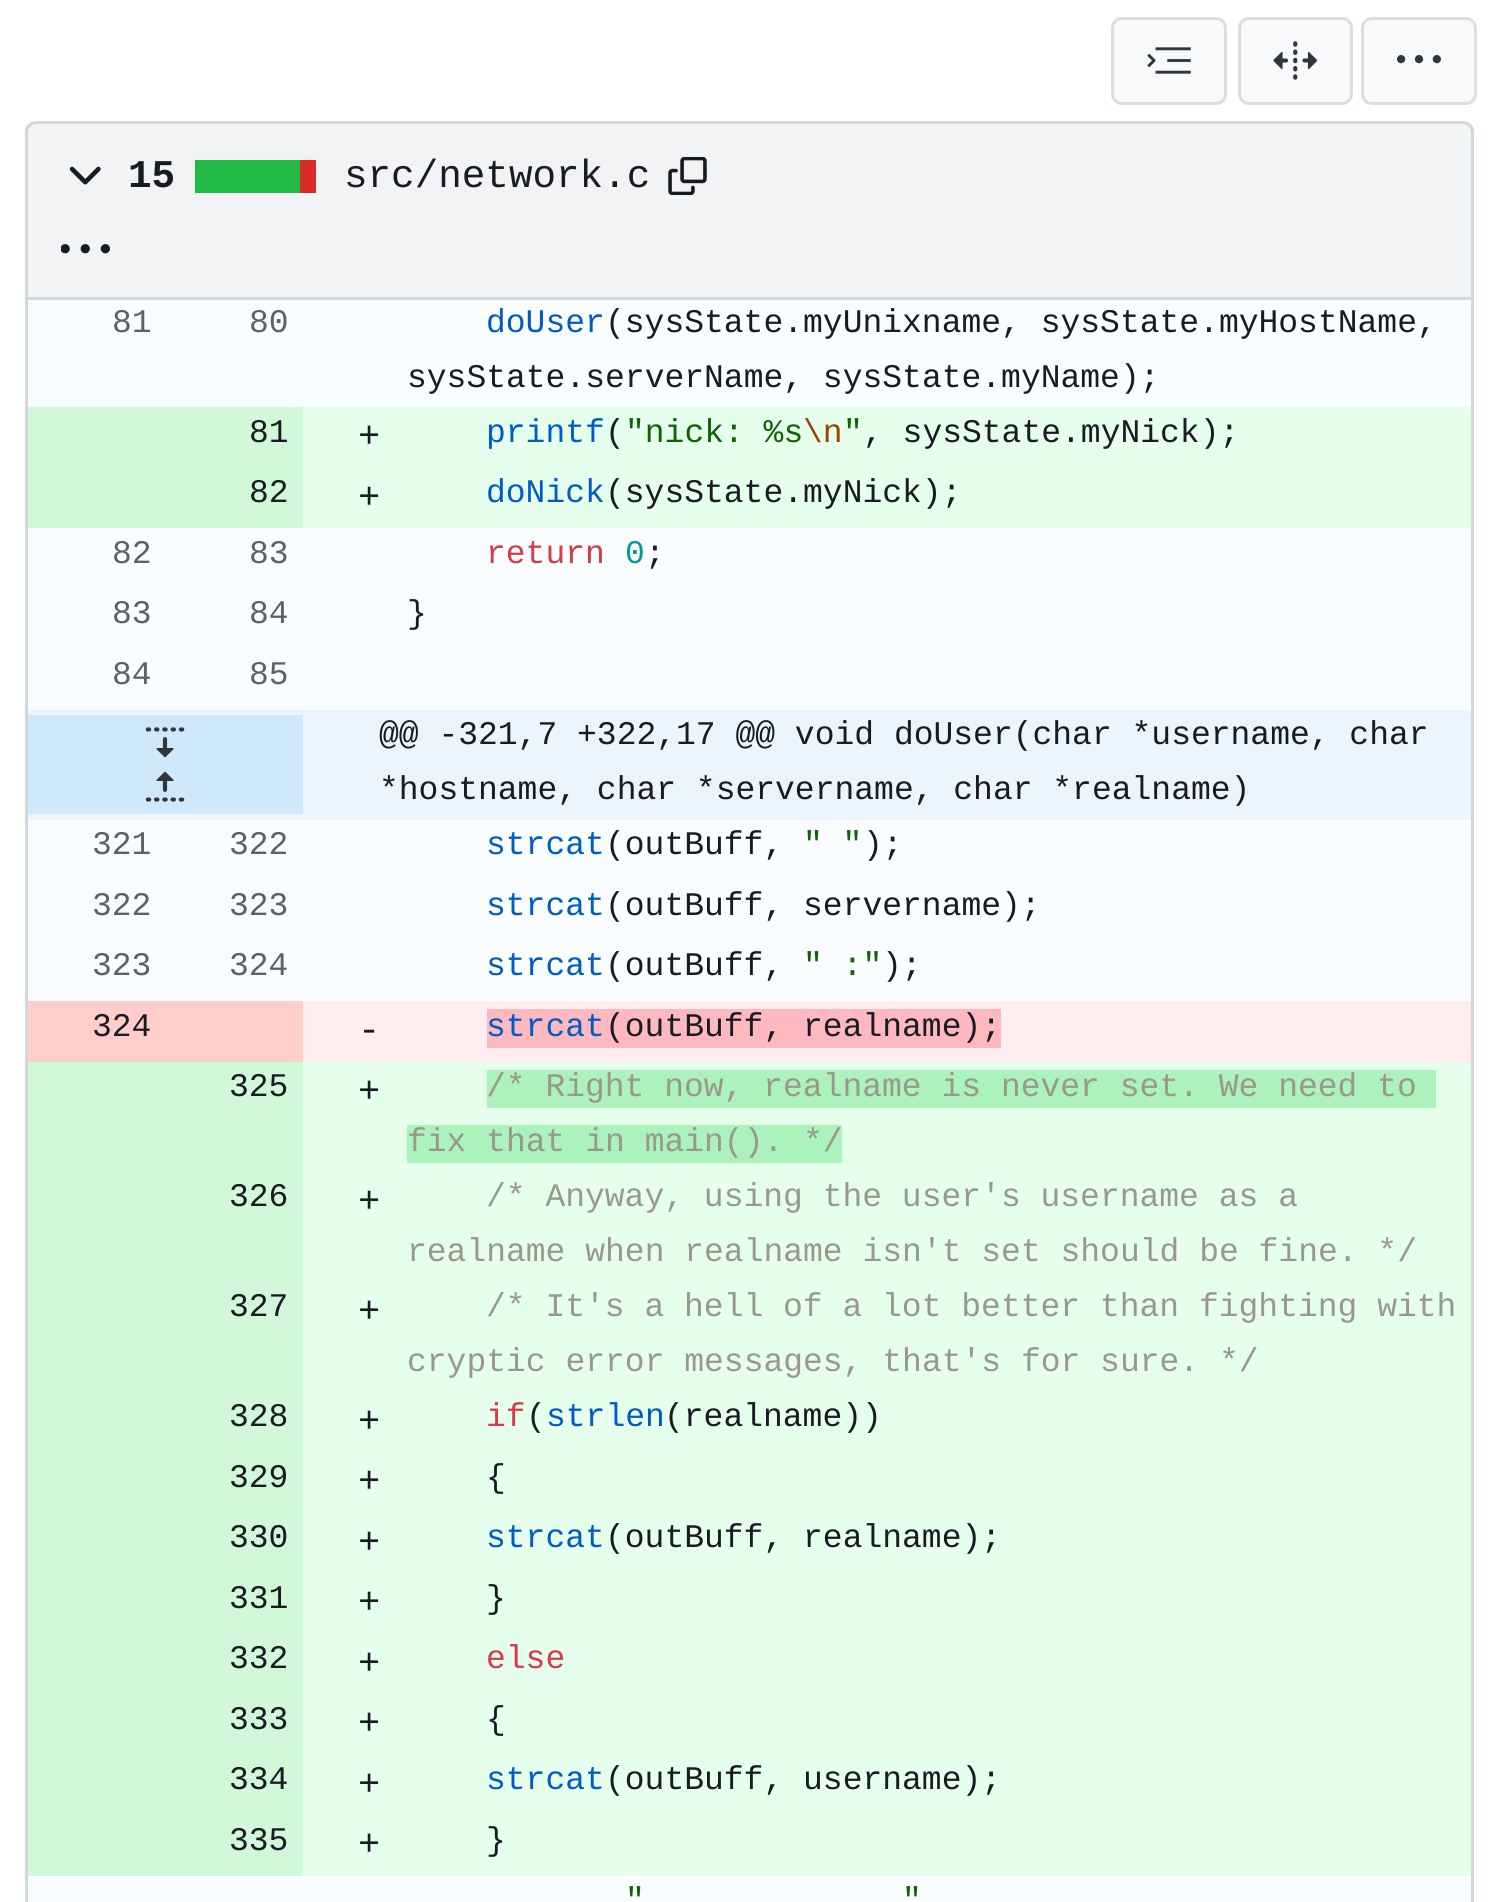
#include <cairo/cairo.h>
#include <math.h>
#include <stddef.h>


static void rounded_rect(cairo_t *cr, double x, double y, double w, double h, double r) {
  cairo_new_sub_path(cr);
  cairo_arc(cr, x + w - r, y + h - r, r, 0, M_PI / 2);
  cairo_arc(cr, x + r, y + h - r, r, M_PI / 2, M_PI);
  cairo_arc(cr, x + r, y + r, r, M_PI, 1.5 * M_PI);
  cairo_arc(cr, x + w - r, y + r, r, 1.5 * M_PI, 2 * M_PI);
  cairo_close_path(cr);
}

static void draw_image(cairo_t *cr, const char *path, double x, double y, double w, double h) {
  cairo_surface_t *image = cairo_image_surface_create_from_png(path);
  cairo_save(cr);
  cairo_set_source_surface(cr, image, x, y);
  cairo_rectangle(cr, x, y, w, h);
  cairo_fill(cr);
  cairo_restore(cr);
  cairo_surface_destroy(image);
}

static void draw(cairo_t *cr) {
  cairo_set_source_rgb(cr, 1, 1, 1);
  cairo_paint(cr);
  cairo_set_source_rgb(cr, 208 / 255.0, 215 / 255.0, 222 / 255.0);
  cairo_set_fill_rule(cr, CAIRO_FILL_RULE_EVEN_ODD);
  cairo_new_path(cr);
  cairo_move_to(cr, 25, -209);
  cairo_line_to(cr, 1474, -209);
  cairo_line_to(cr, 1474, 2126);
  cairo_curve_to(cr, 1474, 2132, 1469, 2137, 1463, 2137);
  cairo_line_to(cr, 36, 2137);
  cairo_curve_to(cr, 30, 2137, 25, 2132, 25, 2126);
  cairo_close_path(cr);
  cairo_move_to(cr, 28, -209);
  cairo_line_to(cr, 1471, -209);
  cairo_line_to(cr, 1471, 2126);
  cairo_curve_to(cr, 1471, 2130, 1468, 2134, 1463, 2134);
  cairo_line_to(cr, 36, 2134);
  cairo_curve_to(cr, 31, 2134, 28, 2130, 28, 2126);
  cairo_close_path(cr);
  cairo_fill(cr);
  cairo_set_source_rgb(cr, 250 / 255.0, 253 / 255.0, 1);
  cairo_rectangle(cr, 28, 121, 1443, 1781);
  cairo_fill(cr);
  cairo_set_source_rgb(cr, 1, 1, 1);
  cairo_new_path(cr);
  cairo_move_to(cr, 36, 116);
  cairo_curve_to(cr, 28, 116, 22, 122, 22, 130);
  cairo_line_to(cr, 22, 300);
  cairo_line_to(cr, 1477, 300);
  cairo_line_to(cr, 1477, 130);
  cairo_curve_to(cr, 1477, 122, 1471, 116, 1463, 116);
  cairo_close_path(cr);
  cairo_move_to(cr, 36, 121);
  cairo_curve_to(cr, 30, 121, 25, 126, 25, 132);
  cairo_line_to(cr, 25, 300);
  cairo_line_to(cr, 1474, 300);
  cairo_line_to(cr, 1474, 132);
  cairo_curve_to(cr, 1474, 126, 1469, 121, 1463, 121);
  cairo_close_path(cr);
  cairo_fill(cr);
  cairo_rectangle(cr, 25, 0, 1449, 121);
  cairo_fill(cr);
  cairo_set_source_rgb(cr, 248 / 255.0, 249 / 255.0, 251 / 255.0);
  rounded_rect(cr, 1112.5, 18.5, 113, 85, 9.5);
  cairo_fill_preserve(cr);
  cairo_set_source_rgb(cr, 220 / 255.0, 221 / 255.0, 225 / 255.0);
  cairo_set_line_width(cr, 3);
  cairo_stroke(cr);
  draw_image(cr, "images/1.png", 1147, 47, 44, 27);
  cairo_set_source_rgb(cr, 248 / 255.0, 249 / 255.0, 251 / 255.0);
  rounded_rect(cr, 1239.5, 18.5, 112, 85, 9.5);
  cairo_fill_preserve(cr);
  cairo_set_source_rgb(cr, 220 / 255.0, 221 / 255.0, 225 / 255.0);
  cairo_stroke(cr);
  draw_image(cr, "images/2.png", 1273, 41, 44, 39);
  cairo_set_source_rgb(cr, 248 / 255.0, 249 / 255.0, 251 / 255.0);
  rounded_rect(cr, 1362.5, 18.5, 113, 85, 9.5);
  cairo_fill_preserve(cr);
  cairo_set_source_rgb(cr, 220 / 255.0, 221 / 255.0, 225 / 255.0);
  cairo_stroke(cr);
  draw_image(cr, "images/3.png", 1397, 55, 44, 9);
  cairo_set_source_rgb(cr, 241 / 255.0, 243 / 255.0, 245 / 255.0);
  cairo_new_path(cr);
  cairo_move_to(cr, 36, 122.5);
  cairo_line_to(cr, 1463, 122.5);
  cairo_curve_to(cr, 1468, 122.5, 1472.5, 127, 1472.5, 132);
  cairo_line_to(cr, 1472.5, 298.5);
  cairo_line_to(cr, 26.5, 298.5);
  cairo_line_to(cr, 26.5, 132);
  cairo_curve_to(cr, 26.5, 127, 31, 122.5, 36, 122.5);
  cairo_close_path(cr);
  cairo_fill_preserve(cr);
  cairo_set_source_rgb(cr, 208 / 255.0, 215 / 255.0, 222 / 255.0);
  cairo_stroke(cr);
  draw_image(cr, "images/4.png", 69, 166, 32, 19);
  cairo_set_source_rgb(cr, 219 / 255.0, 40 / 255.0, 40 / 255.0);
  cairo_rectangle(cr, 300, 160, 16, 33);
  cairo_fill(cr);
  cairo_set_source_rgb(cr, 33 / 255.0, 186 / 255.0, 69 / 255.0);
  cairo_rectangle(cr, 195, 160, 105, 33);
  cairo_fill(cr);
  draw_image(cr, "images/5.png", 668, 157, 39, 38);
  draw_image(cr, "images/6.png", 61, 244, 49, 10);
  cairo_set_source_rgb(cr, 230 / 255.0, 1, 237 / 255.0);
  cairo_rectangle(cr, 303, 407, 1168, 121);
  cairo_fill(cr);
  cairo_set_source_rgb(cr, 209 / 255.0, 248 / 255.0, 217 / 255.0);
  cairo_rectangle(cr, 28, 407, 275, 61);
  cairo_fill(cr);
  cairo_rectangle(cr, 28, 468, 275, 60);
  cairo_fill(cr);
  cairo_set_source_rgb(cr, 236 / 255.0, 245 / 255.0, 253 / 255.0);
  cairo_rectangle(cr, 28, 710, 1443, 110);
  cairo_fill(cr);
  cairo_set_source_rgb(cr, 207 / 255.0, 232 / 255.0, 250 / 255.0);
  cairo_rectangle(cr, 28, 715, 275, 99);
  cairo_fill(cr);
  draw_image(cr, "images/7.png", 145, 727, 40, 31);
  draw_image(cr, "images/8.png", 145, 771, 40, 31);
  cairo_set_source_rgb(cr, 1, 238 / 255.0, 240 / 255.0);
  cairo_rectangle(cr, 303, 1001, 1168, 61);
  cairo_fill(cr);
  cairo_set_source_rgb(cr, 1, 206 / 255.0, 203 / 255.0);
  cairo_rectangle(cr, 28, 1001, 275, 61);
  cairo_fill(cr);
  cairo_set_source_rgb(cr, 253 / 255.0, 184 / 255.0, 192 / 255.0);
  cairo_rectangle(cr, 487, 1009, 514, 39);
  cairo_fill(cr);
  cairo_set_source_rgb(cr, 230 / 255.0, 1, 237 / 255.0);
  cairo_rectangle(cr, 303, 1062, 1168, 814);
  cairo_fill(cr);
  cairo_set_source_rgb(cr, 209 / 255.0, 248 / 255.0, 217 / 255.0);
  cairo_rectangle(cr, 28, 1062, 275, 110);
  cairo_fill(cr);
  cairo_set_source_rgb(cr, 172 / 255.0, 242 / 255.0, 189 / 255.0);
  cairo_rectangle(cr, 487, 1070, 949, 38);
  cairo_fill(cr);
  cairo_rectangle(cr, 407, 1125, 435, 38);
  cairo_fill(cr);
  cairo_set_source_rgb(cr, 209 / 255.0, 248 / 255.0, 217 / 255.0);
  cairo_rectangle(cr, 28, 1172, 275, 110);
  cairo_fill(cr);
  cairo_rectangle(cr, 28, 1282, 275, 110);
  cairo_fill(cr);
  cairo_rectangle(cr, 28, 1392, 275, 60);
  cairo_fill(cr);
  cairo_rectangle(cr, 28, 1452, 275, 61);
  cairo_fill(cr);
  cairo_rectangle(cr, 28, 1513, 275, 60);
  cairo_fill(cr);
  cairo_rectangle(cr, 28, 1573, 275, 61);
  cairo_fill(cr);
  cairo_rectangle(cr, 28, 1634, 275, 60);
  cairo_fill(cr);
  cairo_rectangle(cr, 28, 1694, 275, 61);
  cairo_fill(cr);
  cairo_rectangle(cr, 28, 1755, 275, 60);
  cairo_fill(cr);
  cairo_rectangle(cr, 28, 1815, 275, 61);
  cairo_fill(cr);
  cairo_select_font_face(cr, "Liberation Mono", CAIRO_FONT_SLANT_NORMAL, CAIRO_FONT_WEIGHT_BOLD);
  cairo_set_font_size(cr, 39.25);
  cairo_set_source_rgb(cr, 24 / 255.0, 28 / 255.0, 33 / 255.0);
  cairo_move_to(cr, 128, 187);
  cairo_show_text(cr, "15");
  cairo_select_font_face(cr, "Liberation Mono", CAIRO_FONT_SLANT_NORMAL, CAIRO_FONT_WEIGHT_NORMAL);
  cairo_move_to(cr, 344, 187);
  cairo_show_text(cr, "src/network.c");
  cairo_set_font_size(cr, 33);
  cairo_set_source_rgb(cr, 91 / 255.0, 97 / 255.0, 103 / 255.0);
  cairo_move_to(cr, 112, 332);
  cairo_show_text(cr, "81");
  cairo_move_to(cr, 249, 332);
  cairo_show_text(cr, "80");
  cairo_set_source_rgb(cr, 0, 92 / 255.0, 197 / 255.0);
  cairo_move_to(cr, 486, 332);
  cairo_show_text(cr, "doUser");
  cairo_set_source_rgb(cr, 24 / 255.0, 28 / 255.0, 33 / 255.0);
  cairo_move_to(cr, 605, 332);
  cairo_show_text(cr, "(sysState.myUnixname, sysState.myHostName,");
  cairo_move_to(cr, 407, 387);
  cairo_show_text(cr, "sysState.serverName, sysState.myName);");
  cairo_set_source_rgb(cr, 0, 92 / 255.0, 197 / 255.0);
  cairo_move_to(cr, 486, 442);
  cairo_show_text(cr, "printf");
  cairo_set_source_rgb(cr, 24 / 255.0, 28 / 255.0, 33 / 255.0);
  cairo_move_to(cr, 605, 442);
  cairo_show_text(cr, "(");
  cairo_set_source_rgb(cr, 16 / 255.0, 99 / 255.0, 3 / 255.0);
  cairo_move_to(cr, 625, 442);
  cairo_show_text(cr, "\"nick: %s");
  cairo_set_source_rgb(cr, 153 / 255.0, 68 / 255.0, 0);
  cairo_move_to(cr, 803, 442);
  cairo_show_text(cr, "\\n");
  cairo_set_source_rgb(cr, 16 / 255.0, 99 / 255.0, 3 / 255.0);
  cairo_move_to(cr, 843, 442);
  cairo_show_text(cr, "\"");
  cairo_set_source_rgb(cr, 24 / 255.0, 28 / 255.0, 33 / 255.0);
  cairo_move_to(cr, 863, 442);
  cairo_show_text(cr, ", sysState.myNick);");
  cairo_move_to(cr, 249, 442);
  cairo_show_text(cr, "81");
  cairo_set_font_size(cr, 37);
  cairo_move_to(cr, 358, 447);
  cairo_show_text(cr, "+");
  cairo_set_font_size(cr, 33);
  cairo_set_source_rgb(cr, 0, 92 / 255.0, 197 / 255.0);
  cairo_move_to(cr, 486, 502);
  cairo_show_text(cr, "doNick");
  cairo_set_source_rgb(cr, 24 / 255.0, 28 / 255.0, 33 / 255.0);
  cairo_move_to(cr, 605, 502);
  cairo_show_text(cr, "(sysState.myNick);");
  cairo_move_to(cr, 249, 502);
  cairo_show_text(cr, "82");
  cairo_set_font_size(cr, 37);
  cairo_move_to(cr, 358, 508);
  cairo_show_text(cr, "+");
  cairo_set_font_size(cr, 33);
  cairo_set_source_rgb(cr, 91 / 255.0, 97 / 255.0, 103 / 255.0);
  cairo_move_to(cr, 112, 563);
  cairo_show_text(cr, "82");
  cairo_move_to(cr, 249, 563);
  cairo_show_text(cr, "83");
  cairo_set_source_rgb(cr, 215 / 255.0, 58 / 255.0, 73 / 255.0);
  cairo_move_to(cr, 486, 563);
  cairo_show_text(cr, "return");
  cairo_set_source_rgb(cr, 0, 153 / 255.0, 153 / 255.0);
  cairo_move_to(cr, 625, 563);
  cairo_show_text(cr, "0");
  cairo_set_source_rgb(cr, 24 / 255.0, 28 / 255.0, 33 / 255.0);
  cairo_move_to(cr, 645, 563);
  cairo_show_text(cr, ";");
  cairo_set_source_rgb(cr, 91 / 255.0, 97 / 255.0, 103 / 255.0);
  cairo_move_to(cr, 112, 623);
  cairo_show_text(cr, "83");
  cairo_move_to(cr, 249, 623);
  cairo_show_text(cr, "84");
  cairo_set_source_rgb(cr, 24 / 255.0, 28 / 255.0, 33 / 255.0);
  cairo_move_to(cr, 407, 623);
  cairo_show_text(cr, "}");
  cairo_set_source_rgb(cr, 91 / 255.0, 97 / 255.0, 103 / 255.0);
  cairo_move_to(cr, 112, 684);
  cairo_show_text(cr, "84");
  cairo_move_to(cr, 249, 684);
  cairo_show_text(cr, "85");
  cairo_set_source_rgb(cr, 24 / 255.0, 28 / 255.0, 33 / 255.0);
  cairo_move_to(cr, 379, 744);
  cairo_show_text(cr, "@@ -321,7 +322,17 @@ void doUser(char *username, char");
  cairo_move_to(cr, 379, 799);
  cairo_show_text(cr, "*hostname, char *servername, char *realname)");
  cairo_set_source_rgb(cr, 91 / 255.0, 97 / 255.0, 103 / 255.0);
  cairo_move_to(cr, 92, 854);
  cairo_show_text(cr, "321");
  cairo_move_to(cr, 229, 854);
  cairo_show_text(cr, "322");
  cairo_set_source_rgb(cr, 0, 92 / 255.0, 197 / 255.0);
  cairo_move_to(cr, 486, 854);
  cairo_show_text(cr, "strcat");
  cairo_set_source_rgb(cr, 24 / 255.0, 28 / 255.0, 33 / 255.0);
  cairo_move_to(cr, 605, 854);
  cairo_show_text(cr, "(outBuff,");
  cairo_set_source_rgb(cr, 16 / 255.0, 99 / 255.0, 3 / 255.0);
  cairo_move_to(cr, 803, 854);
  cairo_show_text(cr, "\" \"");
  cairo_set_source_rgb(cr, 24 / 255.0, 28 / 255.0, 33 / 255.0);
  cairo_move_to(cr, 863, 854);
  cairo_show_text(cr, ");");
  cairo_set_source_rgb(cr, 91 / 255.0, 97 / 255.0, 103 / 255.0);
  cairo_move_to(cr, 92, 915);
  cairo_show_text(cr, "322");
  cairo_move_to(cr, 229, 915);
  cairo_show_text(cr, "323");
  cairo_set_source_rgb(cr, 0, 92 / 255.0, 197 / 255.0);
  cairo_move_to(cr, 486, 915);
  cairo_show_text(cr, "strcat");
  cairo_set_source_rgb(cr, 24 / 255.0, 28 / 255.0, 33 / 255.0);
  cairo_move_to(cr, 605, 915);
  cairo_show_text(cr, "(outBuff, servername);");
  cairo_set_source_rgb(cr, 91 / 255.0, 97 / 255.0, 103 / 255.0);
  cairo_move_to(cr, 92, 975);
  cairo_show_text(cr, "323");
  cairo_move_to(cr, 229, 975);
  cairo_show_text(cr, "324");
  cairo_set_source_rgb(cr, 0, 92 / 255.0, 197 / 255.0);
  cairo_move_to(cr, 486, 975);
  cairo_show_text(cr, "strcat");
  cairo_set_source_rgb(cr, 24 / 255.0, 28 / 255.0, 33 / 255.0);
  cairo_move_to(cr, 605, 975);
  cairo_show_text(cr, "(outBuff,");
  cairo_set_source_rgb(cr, 16 / 255.0, 99 / 255.0, 3 / 255.0);
  cairo_move_to(cr, 803, 975);
  cairo_show_text(cr, "\" :\"");
  cairo_set_source_rgb(cr, 24 / 255.0, 28 / 255.0, 33 / 255.0);
  cairo_move_to(cr, 882, 975);
  cairo_show_text(cr, ");");
  cairo_move_to(cr, 92, 1036);
  cairo_show_text(cr, "324");
  cairo_set_font_size(cr, 37);
  cairo_move_to(cr, 358, 1041);
  cairo_show_text(cr, "-");
  cairo_set_font_size(cr, 33);
  cairo_set_source_rgb(cr, 0, 92 / 255.0, 197 / 255.0);
  cairo_move_to(cr, 486, 1036);
  cairo_show_text(cr, "strcat");
  cairo_set_source_rgb(cr, 24 / 255.0, 28 / 255.0, 33 / 255.0);
  cairo_move_to(cr, 605, 1036);
  cairo_show_text(cr, "(outBuff, realname);");
  cairo_set_source_rgb(cr, 153 / 255.0, 153 / 255.0, 136 / 255.0);
  cairo_move_to(cr, 486, 1096);
  cairo_show_text(cr, "/* Right now, realname is never set. We need to");
  cairo_move_to(cr, 407, 1151);
  cairo_show_text(cr, "fix that in main(). */");
  cairo_set_source_rgb(cr, 24 / 255.0, 28 / 255.0, 33 / 255.0);
  cairo_move_to(cr, 229, 1096);
  cairo_show_text(cr, "325");
  cairo_set_font_size(cr, 37);
  cairo_move_to(cr, 358, 1102);
  cairo_show_text(cr, "+");
  cairo_set_font_size(cr, 33);
  cairo_set_source_rgb(cr, 153 / 255.0, 153 / 255.0, 136 / 255.0);
  cairo_move_to(cr, 486, 1206);
  cairo_show_text(cr, "/* Anyway, using the user's username as a");
  cairo_move_to(cr, 407, 1261);
  cairo_show_text(cr, "realname when realname isn't set should be fine. */");
  cairo_set_source_rgb(cr, 24 / 255.0, 28 / 255.0, 33 / 255.0);
  cairo_move_to(cr, 229, 1206);
  cairo_show_text(cr, "326");
  cairo_set_font_size(cr, 37);
  cairo_move_to(cr, 358, 1212);
  cairo_show_text(cr, "+");
  cairo_set_font_size(cr, 33);
  cairo_set_source_rgb(cr, 153 / 255.0, 153 / 255.0, 136 / 255.0);
  cairo_move_to(cr, 486, 1316);
  cairo_show_text(cr, "/* It's a hell of a lot better than fighting with");
  cairo_move_to(cr, 407, 1371);
  cairo_show_text(cr, "cryptic error messages, that's for sure. */");
  cairo_set_source_rgb(cr, 24 / 255.0, 28 / 255.0, 33 / 255.0);
  cairo_move_to(cr, 229, 1316);
  cairo_show_text(cr, "327");
  cairo_set_font_size(cr, 37);
  cairo_move_to(cr, 358, 1322);
  cairo_show_text(cr, "+");
  cairo_set_font_size(cr, 33);
  cairo_set_source_rgb(cr, 215 / 255.0, 58 / 255.0, 73 / 255.0);
  cairo_move_to(cr, 486, 1426);
  cairo_show_text(cr, "if");
  cairo_set_source_rgb(cr, 24 / 255.0, 28 / 255.0, 33 / 255.0);
  cairo_move_to(cr, 526, 1426);
  cairo_show_text(cr, "(");
  cairo_set_source_rgb(cr, 0, 92 / 255.0, 197 / 255.0);
  cairo_move_to(cr, 546, 1426);
  cairo_show_text(cr, "strlen");
  cairo_set_source_rgb(cr, 24 / 255.0, 28 / 255.0, 33 / 255.0);
  cairo_move_to(cr, 664, 1426);
  cairo_show_text(cr, "(realname))");
  cairo_move_to(cr, 229, 1426);
  cairo_show_text(cr, "328");
  cairo_set_font_size(cr, 37);
  cairo_move_to(cr, 358, 1432);
  cairo_show_text(cr, "+");
  cairo_set_font_size(cr, 33);
  cairo_move_to(cr, 486, 1487);
  cairo_show_text(cr, "{");
  cairo_move_to(cr, 229, 1487);
  cairo_show_text(cr, "329");
  cairo_set_font_size(cr, 37);
  cairo_move_to(cr, 358, 1492);
  cairo_show_text(cr, "+");
  cairo_set_font_size(cr, 33);
  cairo_set_source_rgb(cr, 0, 92 / 255.0, 197 / 255.0);
  cairo_move_to(cr, 486, 1547);
  cairo_show_text(cr, "strcat");
  cairo_set_source_rgb(cr, 24 / 255.0, 28 / 255.0, 33 / 255.0);
  cairo_move_to(cr, 605, 1547);
  cairo_show_text(cr, "(outBuff, realname);");
  cairo_move_to(cr, 229, 1547);
  cairo_show_text(cr, "330");
  cairo_set_font_size(cr, 37);
  cairo_move_to(cr, 358, 1553);
  cairo_show_text(cr, "+");
  cairo_set_font_size(cr, 33);
  cairo_move_to(cr, 486, 1608);
  cairo_show_text(cr, "}");
  cairo_move_to(cr, 229, 1608);
  cairo_show_text(cr, "331");
  cairo_set_font_size(cr, 37);
  cairo_move_to(cr, 358, 1613);
  cairo_show_text(cr, "+");
  cairo_set_font_size(cr, 33);
  cairo_set_source_rgb(cr, 215 / 255.0, 58 / 255.0, 73 / 255.0);
  cairo_move_to(cr, 486, 1668);
  cairo_show_text(cr, "else");
  cairo_set_source_rgb(cr, 24 / 255.0, 28 / 255.0, 33 / 255.0);
  cairo_move_to(cr, 229, 1668);
  cairo_show_text(cr, "332");
  cairo_set_font_size(cr, 37);
  cairo_move_to(cr, 358, 1674);
  cairo_show_text(cr, "+");
  cairo_set_font_size(cr, 33);
  cairo_move_to(cr, 486, 1729);
  cairo_show_text(cr, "{");
  cairo_move_to(cr, 229, 1729);
  cairo_show_text(cr, "333");
  cairo_set_font_size(cr, 37);
  cairo_move_to(cr, 358, 1734);
  cairo_show_text(cr, "+");
  cairo_set_font_size(cr, 33);
  cairo_set_source_rgb(cr, 0, 92 / 255.0, 197 / 255.0);
  cairo_move_to(cr, 486, 1789);
  cairo_show_text(cr, "strcat");
  cairo_set_source_rgb(cr, 24 / 255.0, 28 / 255.0, 33 / 255.0);
  cairo_move_to(cr, 605, 1789);
  cairo_show_text(cr, "(outBuff, username);");
  cairo_move_to(cr, 229, 1789);
  cairo_show_text(cr, "334");
  cairo_set_font_size(cr, 37);
  cairo_move_to(cr, 358, 1795);
  cairo_show_text(cr, "+");
  cairo_set_font_size(cr, 33);
  cairo_move_to(cr, 486, 1850);
  cairo_show_text(cr, "}");
  cairo_move_to(cr, 229, 1850);
  cairo_show_text(cr, "335");
  cairo_set_font_size(cr, 37);
  cairo_move_to(cr, 358, 1855);
  cairo_show_text(cr, "+");
  cairo_set_font_size(cr, 33);
  cairo_set_source_rgb(cr, 16 / 255.0, 99 / 255.0, 3 / 255.0);
  cairo_move_to(cr, 625, 1910);
  cairo_show_text(cr, "\"");
  cairo_move_to(cr, 902, 1910);
  cairo_show_text(cr, "\"");
}

int main(void) {
  cairo_surface_t *surface = cairo_image_surface_create(CAIRO_FORMAT_RGB24, 1498, 1902);
  cairo_t *cr = cairo_create(surface);
  cairo_font_options_t *options = cairo_font_options_create();
  cairo_font_options_set_hint_metrics(options, CAIRO_HINT_METRICS_OFF);
  cairo_font_options_set_hint_style(options, CAIRO_HINT_STYLE_NONE);
  cairo_set_font_options(cr, options);
  cairo_set_miter_limit(cr, 4);
  draw(cr);
  cairo_surface_write_to_png(surface, "out.png");
  cairo_font_options_destroy(options);
  cairo_destroy(cr);
  cairo_surface_destroy(surface);
  return 0;
}
